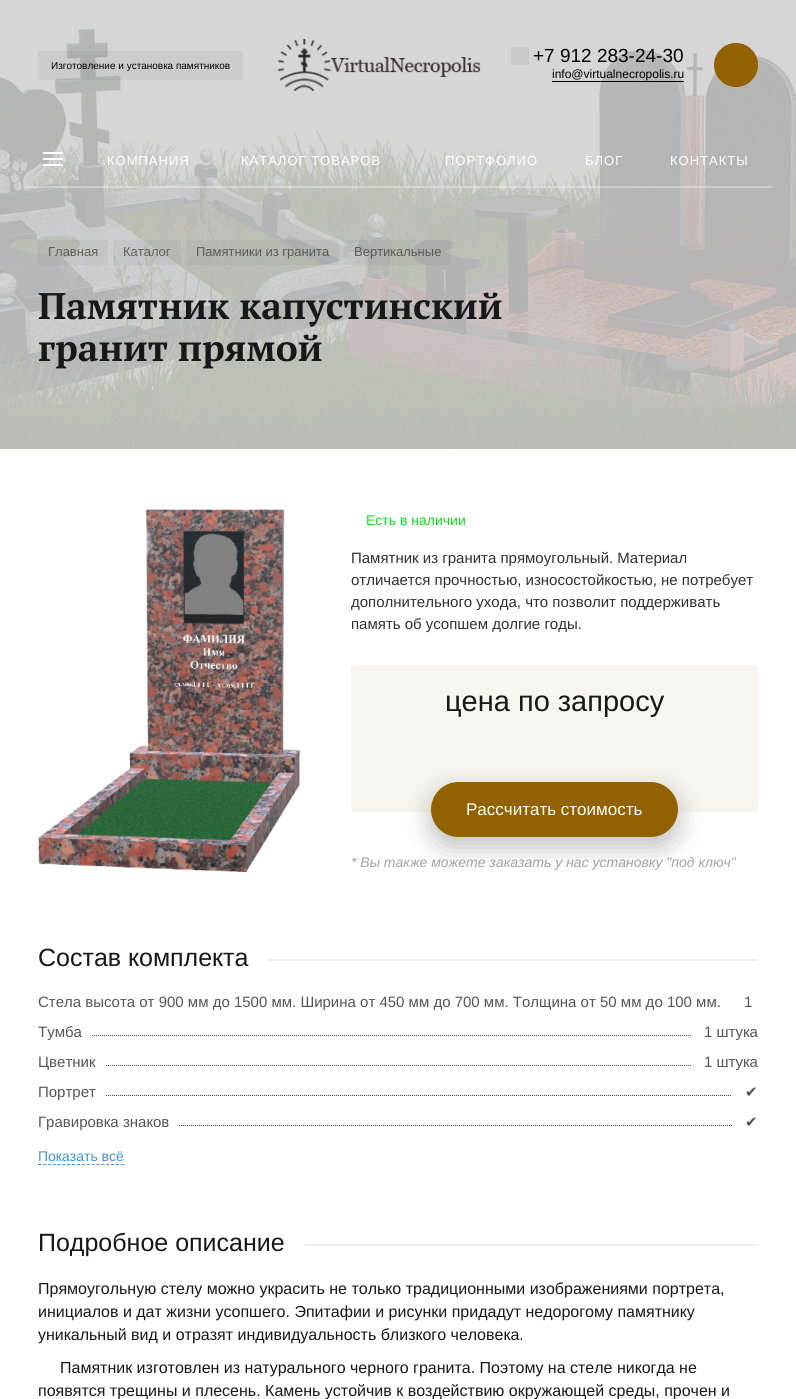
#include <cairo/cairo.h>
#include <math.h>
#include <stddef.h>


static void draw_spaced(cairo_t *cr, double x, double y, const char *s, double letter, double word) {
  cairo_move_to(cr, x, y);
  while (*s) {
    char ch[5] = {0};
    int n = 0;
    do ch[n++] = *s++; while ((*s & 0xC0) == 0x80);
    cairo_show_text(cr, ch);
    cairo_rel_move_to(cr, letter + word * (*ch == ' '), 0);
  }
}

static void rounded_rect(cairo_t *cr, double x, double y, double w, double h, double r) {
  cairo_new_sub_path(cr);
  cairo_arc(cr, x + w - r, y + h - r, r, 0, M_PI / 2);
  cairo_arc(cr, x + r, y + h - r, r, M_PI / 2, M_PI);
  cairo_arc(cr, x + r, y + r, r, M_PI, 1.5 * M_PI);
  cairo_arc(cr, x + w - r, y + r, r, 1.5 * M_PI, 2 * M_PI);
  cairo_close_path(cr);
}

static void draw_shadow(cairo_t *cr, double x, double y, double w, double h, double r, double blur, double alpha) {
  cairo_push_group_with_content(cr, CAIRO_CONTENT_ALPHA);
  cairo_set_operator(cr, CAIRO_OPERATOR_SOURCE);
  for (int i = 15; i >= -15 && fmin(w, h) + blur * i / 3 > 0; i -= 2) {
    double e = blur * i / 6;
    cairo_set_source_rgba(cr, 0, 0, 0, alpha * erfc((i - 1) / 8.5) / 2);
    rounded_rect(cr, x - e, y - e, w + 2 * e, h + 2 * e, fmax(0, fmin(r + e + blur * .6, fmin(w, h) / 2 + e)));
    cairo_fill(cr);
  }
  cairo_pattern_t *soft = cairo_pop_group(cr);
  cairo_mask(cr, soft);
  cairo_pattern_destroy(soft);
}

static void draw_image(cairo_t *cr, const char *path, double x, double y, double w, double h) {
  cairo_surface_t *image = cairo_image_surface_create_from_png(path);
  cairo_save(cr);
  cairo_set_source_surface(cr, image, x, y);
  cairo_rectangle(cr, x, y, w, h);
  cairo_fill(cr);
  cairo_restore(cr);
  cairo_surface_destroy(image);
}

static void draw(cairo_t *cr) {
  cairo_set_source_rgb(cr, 1, 1, 1);
  cairo_paint(cr);
  draw_image(cr, "images/2.png", 0, 0, 796, 449);
  cairo_set_source_rgba(cr, 0, 0, 0, 0.05);
  cairo_rectangle(cr, 38, 51, 205, 29);
  cairo_fill(cr);
  draw_image(cr, "images/1.png", 278, 39, 203, 52);
  cairo_set_source_rgb(cr, 199 / 255.0, 199 / 255.0, 199 / 255.0);
  rounded_rect(cr, 511, 47, 18, 18, 2);
  cairo_fill(cr);
  cairo_set_source_rgb(cr, 0, 0, 0);
  cairo_rectangle(cr, 552, 81, 132, 1);
  cairo_fill(cr);
  cairo_set_source_rgb(cr, 147 / 255.0, 98 / 255.0, 0);
  cairo_arc(cr, 736, 65, 22, 0, 2 * M_PI);
  cairo_fill(cr);
  cairo_set_source_rgba(cr, 1, 1, 1, 0.3);
  cairo_rectangle(cr, 23, 186, 750, 2);
  cairo_fill(cr);
  cairo_set_source_rgb(cr, 1, 1, 1);
  cairo_rectangle(cr, 43, 152, 20, 2);
  cairo_fill(cr);
  cairo_rectangle(cr, 43, 158, 20, 2);
  cairo_fill(cr);
  cairo_rectangle(cr, 43, 164, 20, 2);
  cairo_fill(cr);
  cairo_set_source_rgba(cr, 0, 0, 0, 0.04);
  cairo_rectangle(cr, 38, 240, 70, 25);
  cairo_fill(cr);
  cairo_rectangle(cr, 113, 240, 68, 25);
  cairo_fill(cr);
  cairo_rectangle(cr, 186, 240, 153, 25);
  cairo_fill(cr);
  cairo_rectangle(cr, 344, 240, 107, 25);
  cairo_fill(cr);
  draw_image(cr, "images/3.png", 38, 509, 262, 363);
  cairo_save(cr);
  cairo_set_fill_rule(cr, CAIRO_FILL_RULE_EVEN_ODD);
  cairo_new_path(cr);
  cairo_move_to(cr, 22, 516);
  cairo_line_to(cr, 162, 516);
  cairo_line_to(cr, 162, 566);
  cairo_line_to(cr, 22, 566);
  cairo_close_path(cr);
  cairo_move_to(cr, 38, 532);
  cairo_line_to(cr, 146, 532);
  cairo_line_to(cr, 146, 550);
  cairo_line_to(cr, 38, 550);
  cairo_close_path(cr);
  cairo_clip(cr);
  cairo_set_source_rgb(cr, 1, 1, 1);
  draw_shadow(cr, 38, 532, 108, 18, 0, 5, 1);
  cairo_restore(cr);
  cairo_set_source_rgb(cr, 246 / 255.0, 246 / 255.0, 239 / 255.0);
  cairo_new_path(cr);
  cairo_move_to(cr, 354, 665);
  cairo_line_to(cr, 755, 665);
  cairo_curve_to(cr, 756.5, 665, 758, 666.5, 758, 668);
  cairo_line_to(cr, 758, 737);
  cairo_line_to(cr, 351, 737);
  cairo_line_to(cr, 351, 668);
  cairo_curve_to(cr, 351, 666.5, 352.5, 665, 354, 665);
  cairo_close_path(cr);
  cairo_fill(cr);
  cairo_new_path(cr);
  cairo_move_to(cr, 351, 737);
  cairo_line_to(cr, 758, 737);
  cairo_line_to(cr, 758, 809);
  cairo_curve_to(cr, 758, 810.5, 756.5, 812, 755, 812);
  cairo_line_to(cr, 354, 812);
  cairo_curve_to(cr, 352.5, 812, 351, 810.5, 351, 809);
  cairo_close_path(cr);
  cairo_fill(cr);
  cairo_set_source_rgb(cr, 0, 0, 0);
  draw_shadow(cr, 431, 792, 247, 55, 27.5, 13.5, 0.25);
  cairo_set_source_rgb(cr, 147 / 255.0, 98 / 255.0, 0);
  rounded_rect(cr, 431, 782, 247, 55, 27.5);
  cairo_fill(cr);
  cairo_set_source_rgb(cr, 238 / 255.0, 238 / 255.0, 238 / 255.0);
  cairo_rectangle(cr, 268, 959, 490, 2);
  cairo_fill(cr);
  cairo_new_path(cr);
  cairo_move_to(cr, 92, 1035.5);
  cairo_line_to(cr, 691, 1035.5);
  cairo_set_source_rgb(cr, 73 / 255.0, 73 / 255.0, 73 / 255.0);
  cairo_set_line_width(cr, 1);
  cairo_set_dash(cr, (double[]){1, 1}, 2, 0);
  cairo_stroke(cr);
  cairo_new_path(cr);
  cairo_move_to(cr, 106, 1065.5);
  cairo_line_to(cr, 691, 1065.5);
  cairo_stroke(cr);
  cairo_new_path(cr);
  cairo_move_to(cr, 106, 1095.5);
  cairo_line_to(cr, 732, 1095.5);
  cairo_stroke(cr);
  cairo_new_path(cr);
  cairo_move_to(cr, 179, 1125.5);
  cairo_line_to(cr, 732, 1125.5);
  cairo_stroke(cr);
  cairo_new_path(cr);
  cairo_move_to(cr, 38, 1164.5);
  cairo_line_to(cr, 124, 1164.5);
  cairo_set_source_rgb(cr, 68 / 255.0, 146 / 255.0, 212 / 255.0);
  cairo_set_dash(cr, (double[]){3, 1.88}, 2, 0);
  cairo_stroke(cr);
  cairo_set_source_rgb(cr, 238 / 255.0, 238 / 255.0, 238 / 255.0);
  cairo_rectangle(cr, 305, 1244, 453, 2);
  cairo_fill(cr);
  cairo_select_font_face(cr, "Liberation Sans", CAIRO_FONT_SLANT_NORMAL, CAIRO_FONT_WEIGHT_NORMAL);
  cairo_set_font_size(cr, 10);
  cairo_set_source_rgb(cr, 0, 0, 0);
  cairo_move_to(cr, 51, 69);
  cairo_show_text(cr, "Изготовление и установка памятников");
  cairo_set_font_size(cr, 19);
  cairo_move_to(cr, 533, 62);
  cairo_show_text(cr, "+7 912 283-24-30");
  cairo_set_font_size(cr, 12);
  cairo_move_to(cr, 552, 78);
  cairo_show_text(cr, "info@virtualnecropolis.ru");
  cairo_set_font_size(cr, 13);
  cairo_set_source_rgb(cr, 1, 1, 1);
  draw_spaced(cr, 107, 165, "КОМПАНИЯ", 1, 0);
  draw_spaced(cr, 241, 165, "КАТАЛОГ ТОВАРОВ", 1, 0);
  draw_spaced(cr, 445, 165, "ПОРТФОЛИО", 1, 0);
  draw_spaced(cr, 585, 165, "БЛОГ", 1, 0);
  draw_spaced(cr, 670, 165, "КОНТАКТЫ", 1, 0);
  cairo_set_source_rgb(cr, 95 / 255.0, 95 / 255.0, 93 / 255.0);
  cairo_move_to(cr, 48, 256);
  cairo_show_text(cr, "Главная");
  cairo_move_to(cr, 123, 256);
  cairo_show_text(cr, "Каталог");
  cairo_set_source_rgb(cr, 90 / 255.0, 91 / 255.0, 87 / 255.0);
  cairo_move_to(cr, 196, 256);
  cairo_show_text(cr, "Памятники из гранита");
  cairo_move_to(cr, 354, 256);
  cairo_show_text(cr, "Вертикальные");
  cairo_select_font_face(cr, "PT Serif", CAIRO_FONT_SLANT_NORMAL, CAIRO_FONT_WEIGHT_BOLD);
  cairo_set_font_size(cr, 37);
  cairo_set_source_rgb(cr, 24 / 255.0, 24 / 255.0, 24 / 255.0);
  cairo_move_to(cr, 38, 319);
  cairo_show_text(cr, "Памятник капустинский");
  cairo_move_to(cr, 38, 361);
  cairo_show_text(cr, "гранит прямой");
  cairo_select_font_face(cr, "Liberation Sans", CAIRO_FONT_SLANT_NORMAL, CAIRO_FONT_WEIGHT_NORMAL);
  cairo_set_font_size(cr, 14);
  cairo_set_source_rgb(cr, 17 / 255.0, 218 / 255.0, 31 / 255.0);
  cairo_move_to(cr, 366, 525);
  cairo_show_text(cr, "Есть в наличии");
  cairo_set_font_size(cr, 15);
  cairo_set_source_rgb(cr, 49 / 255.0, 49 / 255.0, 49 / 255.0);
  cairo_move_to(cr, 351, 563);
  cairo_show_text(cr, "Памятник из гранита прямоугольный. Материал");
  cairo_move_to(cr, 351, 585);
  cairo_show_text(cr, "отличается прочностью, износостойкостью, не потребует");
  cairo_move_to(cr, 351, 607);
  cairo_show_text(cr, "дополнительного ухода, что позволит поддерживать");
  cairo_move_to(cr, 351, 629);
  cairo_show_text(cr, "память об усопшем долгие годы.");
  cairo_set_font_size(cr, 29);
  cairo_set_source_rgb(cr, 24 / 255.0, 24 / 255.0, 24 / 255.0);
  cairo_move_to(cr, 445, 711);
  cairo_show_text(cr, "цена по запросу");
  cairo_set_font_size(cr, 17);
  cairo_set_source_rgb(cr, 1, 1, 1);
  cairo_move_to(cr, 466, 815);
  cairo_show_text(cr, "Рассчитать стоимость");
  cairo_select_font_face(cr, "Liberation Sans", CAIRO_FONT_SLANT_ITALIC, CAIRO_FONT_WEIGHT_NORMAL);
  cairo_set_font_size(cr, 14);
  cairo_set_source_rgb(cr, 164 / 255.0, 164 / 255.0, 164 / 255.0);
  cairo_move_to(cr, 351, 867);
  cairo_show_text(cr, "* Вы также можете заказать у нас установку \"под ключ\"");
  cairo_select_font_face(cr, "Liberation Sans", CAIRO_FONT_SLANT_NORMAL, CAIRO_FONT_WEIGHT_NORMAL);
  cairo_set_font_size(cr, 25);
  cairo_set_source_rgb(cr, 24 / 255.0, 24 / 255.0, 24 / 255.0);
  cairo_move_to(cr, 38, 966);
  cairo_show_text(cr, "Состав комплекта");
  cairo_set_font_size(cr, 15);
  cairo_set_source_rgb(cr, 85 / 255.0, 85 / 255.0, 85 / 255.0);
  cairo_move_to(cr, 38, 1007);
  cairo_show_text(cr, "Стела высота от 900 мм до 1500 мм. Ширина от 450 мм до 700 мм. Толщина от 50 мм до 100 мм.");
  cairo_move_to(cr, 744, 1007);
  cairo_show_text(cr, "1");
  cairo_move_to(cr, 38, 1037);
  cairo_show_text(cr, "Тумба");
  cairo_move_to(cr, 704, 1037);
  cairo_show_text(cr, "1 штука");
  cairo_move_to(cr, 38, 1067);
  cairo_show_text(cr, "Цветник");
  cairo_move_to(cr, 704, 1067);
  cairo_show_text(cr, "1 штука");
  cairo_move_to(cr, 38, 1097);
  cairo_show_text(cr, "Портрет");
  cairo_select_font_face(cr, "DejaVu Sans", CAIRO_FONT_SLANT_NORMAL, CAIRO_FONT_WEIGHT_NORMAL);
  cairo_move_to(cr, 745, 1097);
  cairo_show_text(cr, "✔");
  cairo_select_font_face(cr, "Liberation Sans", CAIRO_FONT_SLANT_NORMAL, CAIRO_FONT_WEIGHT_NORMAL);
  cairo_move_to(cr, 38, 1127);
  cairo_show_text(cr, "Гравировка знаков");
  cairo_select_font_face(cr, "DejaVu Sans", CAIRO_FONT_SLANT_NORMAL, CAIRO_FONT_WEIGHT_NORMAL);
  cairo_move_to(cr, 745, 1127);
  cairo_show_text(cr, "✔");
  cairo_select_font_face(cr, "Liberation Sans", CAIRO_FONT_SLANT_NORMAL, CAIRO_FONT_WEIGHT_NORMAL);
  cairo_set_font_size(cr, 14);
  cairo_set_source_rgb(cr, 68 / 255.0, 146 / 255.0, 212 / 255.0);
  cairo_move_to(cr, 38, 1161);
  cairo_show_text(cr, "Показать всё");
  cairo_set_font_size(cr, 25);
  cairo_set_source_rgb(cr, 24 / 255.0, 24 / 255.0, 24 / 255.0);
  cairo_move_to(cr, 38, 1251);
  cairo_show_text(cr, "Подробное описание");
  cairo_set_font_size(cr, 16);
  cairo_move_to(cr, 38, 1294);
  cairo_show_text(cr, "Прямоугольную стелу можно украсить не только традиционными изображениями портрета,");
  cairo_move_to(cr, 38, 1317);
  cairo_show_text(cr, "инициалов и дат жизни усопшего. Эпитафии и рисунки придадут недорогому памятнику");
  cairo_move_to(cr, 38, 1340);
  cairo_show_text(cr, "уникальный вид и отразят индивидуальность близкого человека.");
  cairo_move_to(cr, 60, 1373);
  cairo_show_text(cr, "Памятник изготовлен из натурального черного гранита. Поэтому на стеле никогда не");
  cairo_move_to(cr, 38, 1396);
  cairo_show_text(cr, "появятся трещины и плесень. Камень устойчив к воздействию окружающей среды, прочен и");
}

int main(void) {
  cairo_surface_t *surface = cairo_image_surface_create(CAIRO_FORMAT_RGB24, 796, 1399);
  cairo_t *cr = cairo_create(surface);
  cairo_font_options_t *options = cairo_font_options_create();
  cairo_font_options_set_hint_metrics(options, CAIRO_HINT_METRICS_OFF);
  cairo_font_options_set_hint_style(options, CAIRO_HINT_STYLE_NONE);
  cairo_set_font_options(cr, options);
  cairo_set_miter_limit(cr, 4);
  draw(cr);
  cairo_surface_write_to_png(surface, "out.png");
  cairo_font_options_destroy(options);
  cairo_destroy(cr);
  cairo_surface_destroy(surface);
  return 0;
}
